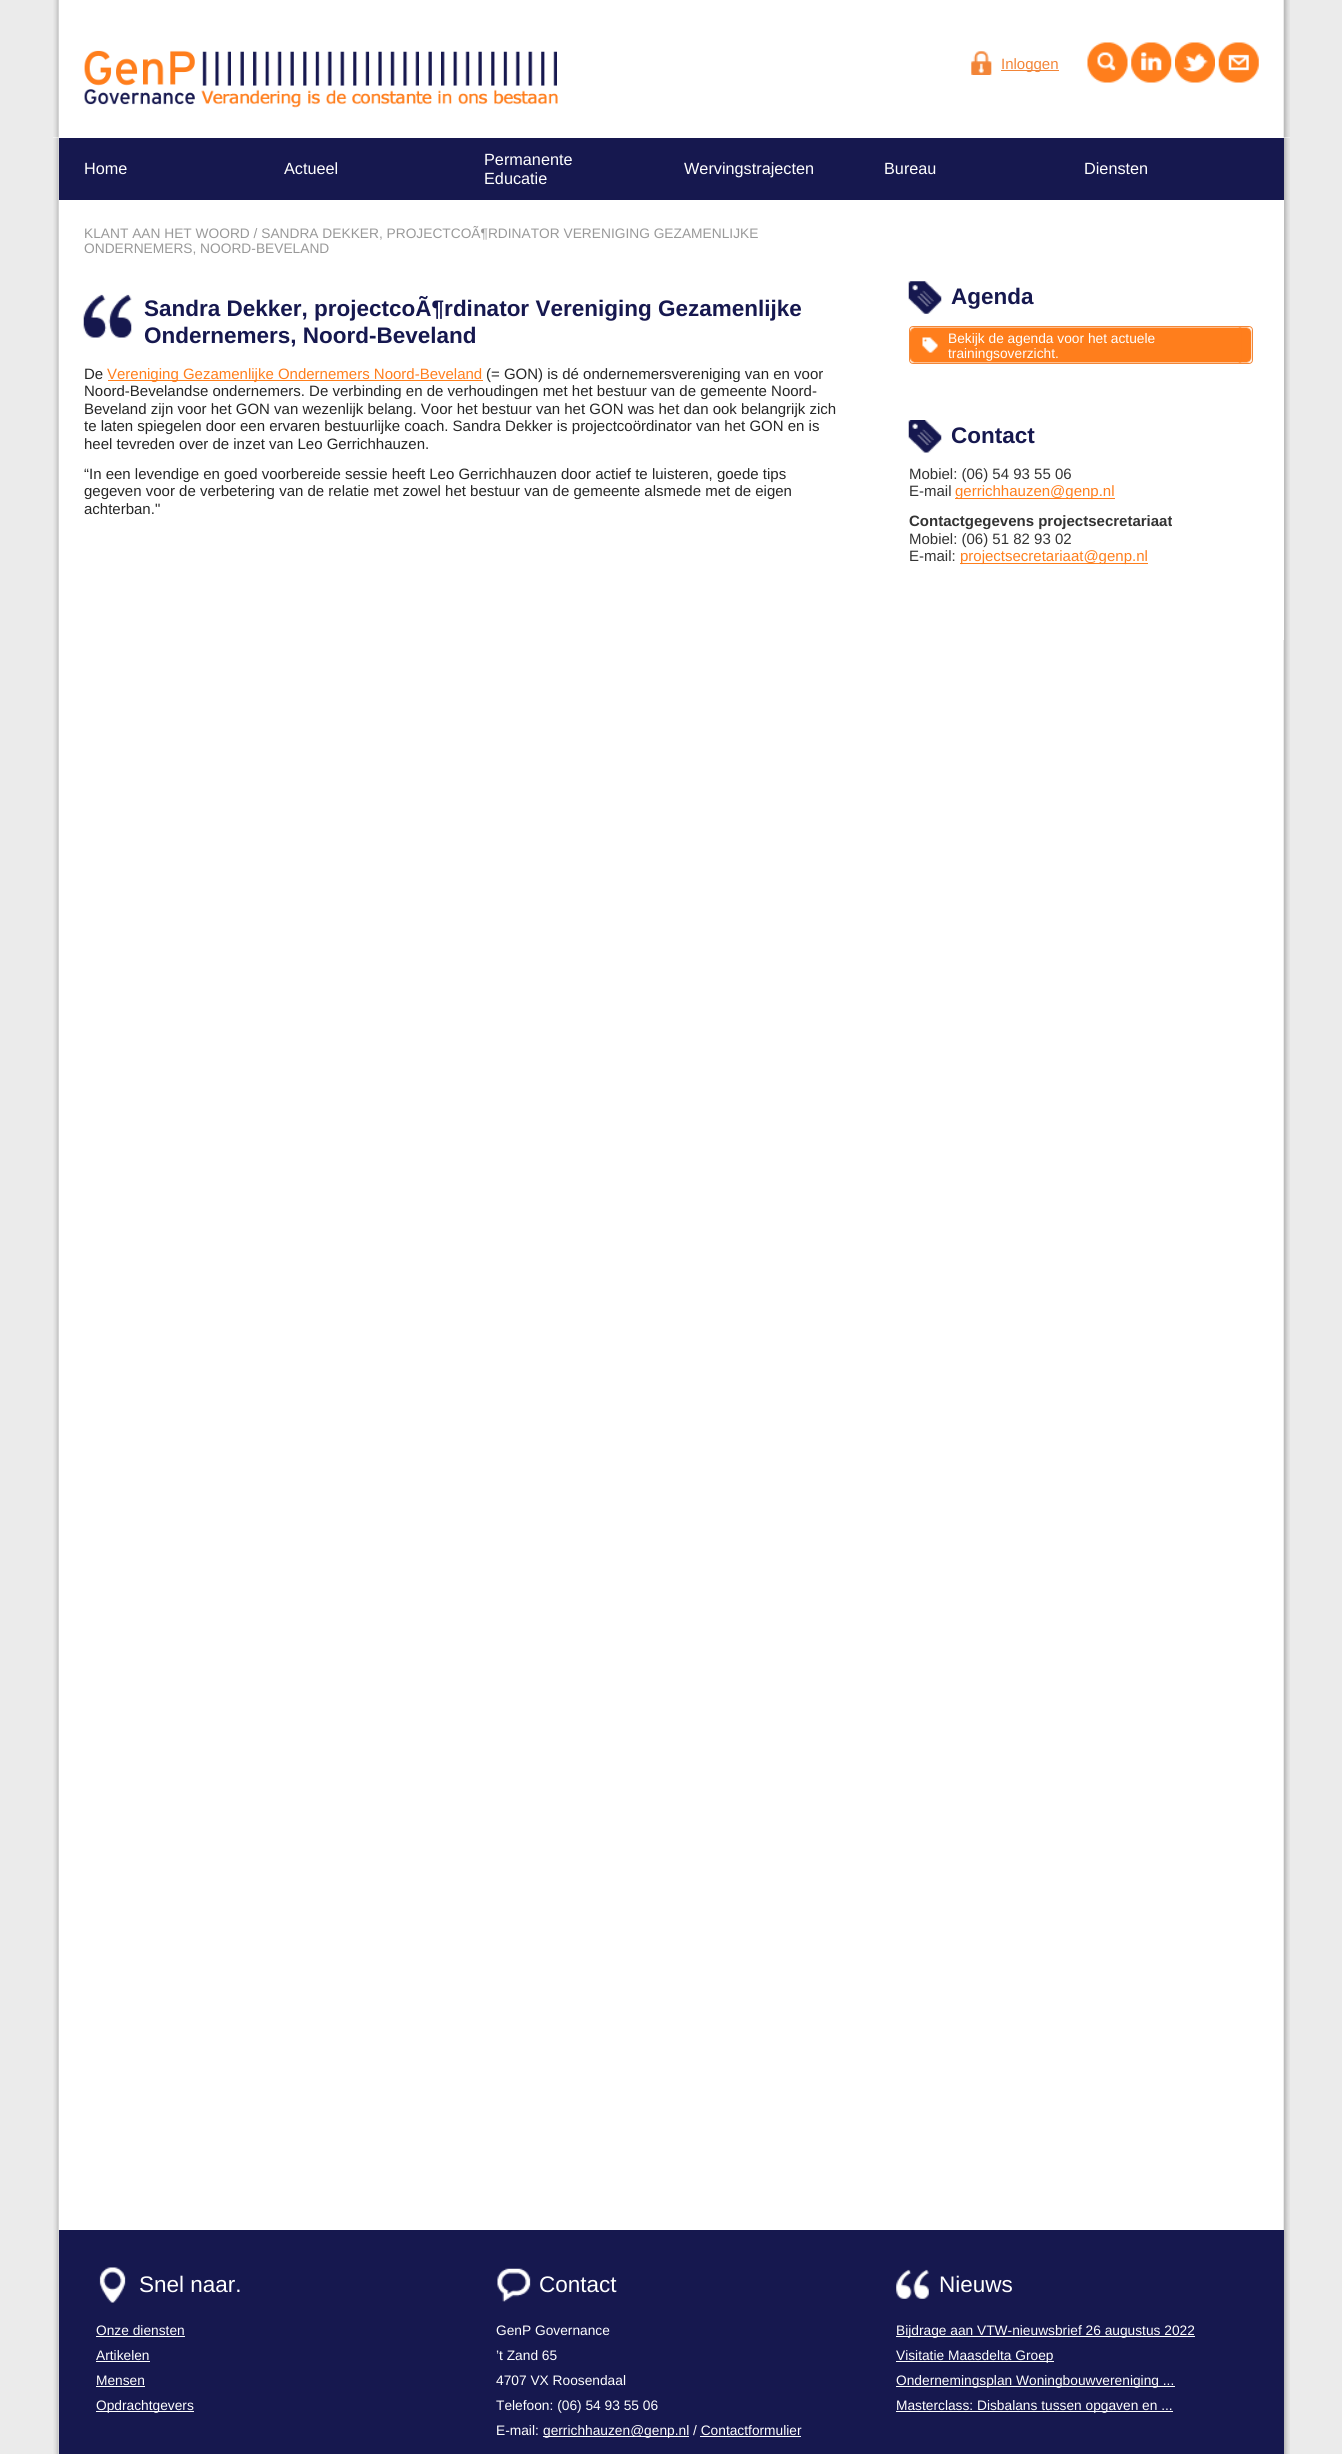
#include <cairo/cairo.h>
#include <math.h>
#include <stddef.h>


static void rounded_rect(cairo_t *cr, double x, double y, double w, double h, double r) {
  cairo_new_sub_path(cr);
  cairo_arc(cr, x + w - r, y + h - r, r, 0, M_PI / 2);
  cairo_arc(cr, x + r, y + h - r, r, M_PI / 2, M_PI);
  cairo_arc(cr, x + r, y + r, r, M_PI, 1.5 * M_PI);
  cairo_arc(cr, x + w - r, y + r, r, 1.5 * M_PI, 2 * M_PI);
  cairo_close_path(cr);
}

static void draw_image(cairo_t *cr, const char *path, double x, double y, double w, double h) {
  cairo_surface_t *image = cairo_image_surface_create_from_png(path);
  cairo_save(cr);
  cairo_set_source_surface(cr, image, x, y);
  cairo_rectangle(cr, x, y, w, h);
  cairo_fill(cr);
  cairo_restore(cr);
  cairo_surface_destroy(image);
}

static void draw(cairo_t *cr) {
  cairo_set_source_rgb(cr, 235 / 255.0, 235 / 255.0, 235 / 255.0);
  cairo_paint(cr);
  draw_image(cr, "images/1.png", 53, 138, 1237, 2316);
  cairo_set_source_rgb(cr, 1, 1, 1);
  cairo_rectangle(cr, 53, 137, 1237, 1);
  cairo_fill(cr);
  draw_image(cr, "images/2.png", 53, 0, 1237, 138);
  draw_image(cr, "images/3.png", 84, 50, 474, 58);
  draw_image(cr, "images/4.png", 971, 51, 21, 24);
  cairo_set_source_rgb(cr, 242 / 255.0, 133 / 255.0, 56 / 255.0);
  cairo_rectangle(cr, 1001, 70, 58, 1);
  cairo_fill(cr);
  draw_image(cr, "images/5.png", 1087, 42, 41, 41);
  draw_image(cr, "images/6.png", 1131, 42, 41, 41);
  draw_image(cr, "images/7.png", 1175, 42, 40, 41);
  draw_image(cr, "images/8.png", 1218, 42, 41, 41);
  cairo_set_source_rgb(cr, 22 / 255.0, 24 / 255.0, 79 / 255.0);
  cairo_rectangle(cr, 59, 138, 1225, 62);
  cairo_fill(cr);
  cairo_set_source_rgb(cr, 1, 1, 1);
  cairo_rectangle(cr, 1283, 200, 1, 440);
  cairo_fill(cr);
  draw_image(cr, "images/9.png", 83, 294, 49, 44);
  cairo_set_source_rgb(cr, 1, 126 / 255.0, 28 / 255.0);
  cairo_rectangle(cr, 108, 380, 375, 1);
  cairo_fill(cr);
  draw_image(cr, "images/10.png", 908, 281, 34, 33);
  draw_image(cr, "images/11.png", 1238, 327, 14, 36);
  rounded_rect(cr, 909.5, 326.5, 343, 37, 3.5);
  cairo_set_source_rgb(cr, 242 / 255.0, 135 / 255.0, 56 / 255.0);
  cairo_set_line_width(cr, 1);
  cairo_stroke(cr);
  draw_image(cr, "images/12.png", 910, 327, 332, 36);
  draw_image(cr, "images/13.png", 922, 337, 16, 16);
  draw_image(cr, "images/14.png", 908, 420, 34, 33);
  cairo_set_source_rgb(cr, 1, 126 / 255.0, 28 / 255.0);
  cairo_rectangle(cr, 955, 498, 160, 1);
  cairo_fill(cr);
  cairo_rectangle(cr, 960, 563, 188, 1);
  cairo_fill(cr);
  cairo_set_source_rgb(cr, 22 / 255.0, 24 / 255.0, 79 / 255.0);
  cairo_rectangle(cr, 59, 2230, 1225, 224);
  cairo_fill(cr);
  draw_image(cr, "images/15.png", 99, 2267, 27, 36);
  cairo_set_source_rgb(cr, 1, 1, 1);
  cairo_rectangle(cr, 96, 2336, 89, 1);
  cairo_fill(cr);
  cairo_rectangle(cr, 96, 2361, 54, 1);
  cairo_fill(cr);
  cairo_rectangle(cr, 96, 2386, 49, 1);
  cairo_fill(cr);
  cairo_rectangle(cr, 96, 2411, 98, 1);
  cairo_fill(cr);
  draw_image(cr, "images/16.png", 497, 2268, 34, 34);
  cairo_rectangle(cr, 543, 2436, 146, 1);
  cairo_fill(cr);
  cairo_rectangle(cr, 700, 2436, 101, 1);
  cairo_fill(cr);
  draw_image(cr, "images/17.png", 896, 2269, 33, 30);
  cairo_rectangle(cr, 896, 2336, 299, 1);
  cairo_fill(cr);
  cairo_rectangle(cr, 896, 2361, 158, 1);
  cairo_fill(cr);
  cairo_rectangle(cr, 896, 2386, 279, 1);
  cairo_fill(cr);
  cairo_rectangle(cr, 896, 2411, 277, 1);
  cairo_fill(cr);
  cairo_select_font_face(cr, "Liberation Sans", CAIRO_FONT_SLANT_NORMAL, CAIRO_FONT_WEIGHT_NORMAL);
  cairo_set_font_size(cr, 15);
  cairo_set_source_rgb(cr, 242 / 255.0, 133 / 255.0, 56 / 255.0);
  cairo_move_to(cr, 1001, 69);
  cairo_show_text(cr, "Inloggen");
  cairo_set_font_size(cr, 16.25);
  cairo_set_source_rgb(cr, 1, 1, 1);
  cairo_move_to(cr, 84, 174);
  cairo_show_text(cr, "Home");
  cairo_move_to(cr, 284, 174);
  cairo_show_text(cr, "Actueel");
  cairo_move_to(cr, 484, 165);
  cairo_show_text(cr, "Permanente");
  cairo_move_to(cr, 484, 184);
  cairo_show_text(cr, "Educatie");
  cairo_move_to(cr, 684, 174);
  cairo_show_text(cr, "Wervingstrajecten");
  cairo_move_to(cr, 884, 174);
  cairo_show_text(cr, "Bureau");
  cairo_move_to(cr, 1084, 174);
  cairo_show_text(cr, "Diensten");
  cairo_set_font_size(cr, 13.75);
  cairo_set_source_rgb(cr, 153 / 255.0, 153 / 255.0, 153 / 255.0);
  cairo_move_to(cr, 84, 238);
  cairo_show_text(cr, "KLANT AAN HET WOORD / SANDRA DEKKER, PROJECTCOÃ¶RDINATOR VERENIGING GEZAMENLIJKE");
  cairo_move_to(cr, 84, 253);
  cairo_show_text(cr, "ONDERNEMERS, NOORD-BEVELAND");
  cairo_select_font_face(cr, "Liberation Sans", CAIRO_FONT_SLANT_NORMAL, CAIRO_FONT_WEIGHT_BOLD);
  cairo_set_font_size(cr, 22.5);
  cairo_set_source_rgb(cr, 22 / 255.0, 24 / 255.0, 79 / 255.0);
  cairo_move_to(cr, 144, 316);
  cairo_show_text(cr, "Sandra Dekker, projectcoÃ¶rdinator Vereniging Gezamenlijke");
  cairo_move_to(cr, 144, 343);
  cairo_show_text(cr, "Ondernemers, Noord-Beveland");
  cairo_select_font_face(cr, "Liberation Sans", CAIRO_FONT_SLANT_NORMAL, CAIRO_FONT_WEIGHT_NORMAL);
  cairo_set_font_size(cr, 15);
  cairo_set_source_rgb(cr, 38 / 255.0, 38 / 255.0, 38 / 255.0);
  cairo_move_to(cr, 84, 379);
  cairo_show_text(cr, "De");
  cairo_set_source_rgb(cr, 1, 126 / 255.0, 28 / 255.0);
  cairo_move_to(cr, 107, 379);
  cairo_show_text(cr, "Vereniging Gezamenlijke Ondernemers Noord-Beveland");
  cairo_set_source_rgb(cr, 38 / 255.0, 38 / 255.0, 38 / 255.0);
  cairo_move_to(cr, 486, 379);
  cairo_show_text(cr, "(= GON) is dé ondernemersvereniging van en voor");
  cairo_move_to(cr, 84, 396);
  cairo_show_text(cr, "Noord-Bevelandse ondernemers. De verbinding en de verhoudingen met het bestuur van de gemeente Noord-");
  cairo_move_to(cr, 84, 414);
  cairo_show_text(cr, "Beveland zijn voor het GON van wezenlijk belang. Voor het bestuur van het GON was het dan ook belangrijk zich");
  cairo_move_to(cr, 84, 431);
  cairo_show_text(cr, "te laten spiegelen door een ervaren bestuurlijke coach. Sandra Dekker is projectcoördinator van het GON en is");
  cairo_move_to(cr, 84, 449);
  cairo_show_text(cr, "heel tevreden over de inzet van Leo Gerrichhauzen.");
  cairo_move_to(cr, 84, 479);
  cairo_show_text(cr, "“In een levendige en goed voorbereide sessie heeft Leo Gerrichhauzen door actief te luisteren, goede tips");
  cairo_move_to(cr, 84, 496);
  cairo_show_text(cr, "gegeven voor de verbetering van de relatie met zowel het bestuur van de gemeente alsmede met de eigen");
  cairo_move_to(cr, 84, 514);
  cairo_show_text(cr, "achterban.\"");
  cairo_select_font_face(cr, "Liberation Sans", CAIRO_FONT_SLANT_NORMAL, CAIRO_FONT_WEIGHT_BOLD);
  cairo_set_font_size(cr, 22.5);
  cairo_set_source_rgb(cr, 22 / 255.0, 24 / 255.0, 79 / 255.0);
  cairo_move_to(cr, 951, 304);
  cairo_show_text(cr, "Agenda");
  cairo_select_font_face(cr, "Liberation Sans", CAIRO_FONT_SLANT_NORMAL, CAIRO_FONT_WEIGHT_NORMAL);
  cairo_set_font_size(cr, 13.75);
  cairo_set_source_rgb(cr, 1, 1, 1);
  cairo_move_to(cr, 948, 343);
  cairo_show_text(cr, "Bekijk de agenda voor het actuele");
  cairo_move_to(cr, 948, 358);
  cairo_show_text(cr, "trainingsoverzicht.");
  cairo_select_font_face(cr, "Liberation Sans", CAIRO_FONT_SLANT_NORMAL, CAIRO_FONT_WEIGHT_BOLD);
  cairo_set_font_size(cr, 22.5);
  cairo_set_source_rgb(cr, 22 / 255.0, 24 / 255.0, 79 / 255.0);
  cairo_move_to(cr, 951, 443);
  cairo_show_text(cr, "Contact");
  cairo_select_font_face(cr, "Liberation Sans", CAIRO_FONT_SLANT_NORMAL, CAIRO_FONT_WEIGHT_NORMAL);
  cairo_set_font_size(cr, 15);
  cairo_set_source_rgb(cr, 51 / 255.0, 51 / 255.0, 51 / 255.0);
  cairo_move_to(cr, 909, 479);
  cairo_show_text(cr, "Mobiel: (06) 54 93 55 06");
  cairo_move_to(cr, 909, 496);
  cairo_show_text(cr, "E-mail");
  cairo_set_source_rgb(cr, 1, 126 / 255.0, 28 / 255.0);
  cairo_move_to(cr, 955, 496);
  cairo_show_text(cr, "gerrichhauzen@genp.nl");
  cairo_select_font_face(cr, "Liberation Sans", CAIRO_FONT_SLANT_NORMAL, CAIRO_FONT_WEIGHT_BOLD);
  cairo_set_source_rgb(cr, 51 / 255.0, 51 / 255.0, 51 / 255.0);
  cairo_move_to(cr, 909, 526);
  cairo_show_text(cr, "Contactgegevens projectsecretariaat");
  cairo_select_font_face(cr, "Liberation Sans", CAIRO_FONT_SLANT_NORMAL, CAIRO_FONT_WEIGHT_NORMAL);
  cairo_move_to(cr, 909, 544);
  cairo_show_text(cr, "Mobiel: (06) 51 82 93 02");
  cairo_move_to(cr, 909, 561);
  cairo_show_text(cr, "E-mail:");
  cairo_set_source_rgb(cr, 1, 126 / 255.0, 28 / 255.0);
  cairo_move_to(cr, 960, 561);
  cairo_show_text(cr, "projectsecretariaat@genp.nl");
  cairo_set_font_size(cr, 22.5);
  cairo_set_source_rgb(cr, 1, 1, 1);
  cairo_move_to(cr, 139, 2292);
  cairo_show_text(cr, "Snel naar.");
  cairo_set_font_size(cr, 13.75);
  cairo_move_to(cr, 96, 2335);
  cairo_show_text(cr, "Onze diensten");
  cairo_move_to(cr, 96, 2360);
  cairo_show_text(cr, "Artikelen");
  cairo_move_to(cr, 96, 2385);
  cairo_show_text(cr, "Mensen");
  cairo_move_to(cr, 96, 2410);
  cairo_show_text(cr, "Opdrachtgevers");
  cairo_set_font_size(cr, 22.5);
  cairo_move_to(cr, 539, 2292);
  cairo_show_text(cr, "Contact");
  cairo_set_font_size(cr, 13.75);
  cairo_move_to(cr, 496, 2335);
  cairo_show_text(cr, "GenP Governance");
  cairo_move_to(cr, 496, 2360);
  cairo_show_text(cr, "’t Zand 65");
  cairo_move_to(cr, 496, 2385);
  cairo_show_text(cr, "4707 VX Roosendaal");
  cairo_move_to(cr, 496, 2410);
  cairo_show_text(cr, "Telefoon: (06) 54 93 55 06");
  cairo_move_to(cr, 496, 2435);
  cairo_show_text(cr, "E-mail:");
  cairo_move_to(cr, 543, 2435);
  cairo_show_text(cr, "gerrichhauzen@genp.nl / Contactformulier");
  cairo_set_font_size(cr, 22.5);
  cairo_move_to(cr, 939, 2292);
  cairo_show_text(cr, "Nieuws");
  cairo_set_font_size(cr, 13.75);
  cairo_move_to(cr, 896, 2335);
  cairo_show_text(cr, "Bijdrage aan VTW-nieuwsbrief 26 augustus 2022");
  cairo_move_to(cr, 896, 2360);
  cairo_show_text(cr, "Visitatie Maasdelta Groep");
  cairo_move_to(cr, 896, 2385);
  cairo_show_text(cr, "Ondernemingsplan Woningbouwvereniging ...");
  cairo_move_to(cr, 896, 2410);
  cairo_show_text(cr, "Masterclass: Disbalans tussen opgaven en ...");
}

int main(void) {
  cairo_surface_t *surface = cairo_image_surface_create(CAIRO_FORMAT_RGB24, 1342, 2454);
  cairo_t *cr = cairo_create(surface);
  cairo_font_options_t *options = cairo_font_options_create();
  cairo_font_options_set_hint_metrics(options, CAIRO_HINT_METRICS_OFF);
  cairo_font_options_set_hint_style(options, CAIRO_HINT_STYLE_NONE);
  cairo_set_font_options(cr, options);
  cairo_set_miter_limit(cr, 4);
  draw(cr);
  cairo_surface_write_to_png(surface, "out.png");
  cairo_font_options_destroy(options);
  cairo_destroy(cr);
  cairo_surface_destroy(surface);
  return 0;
}
